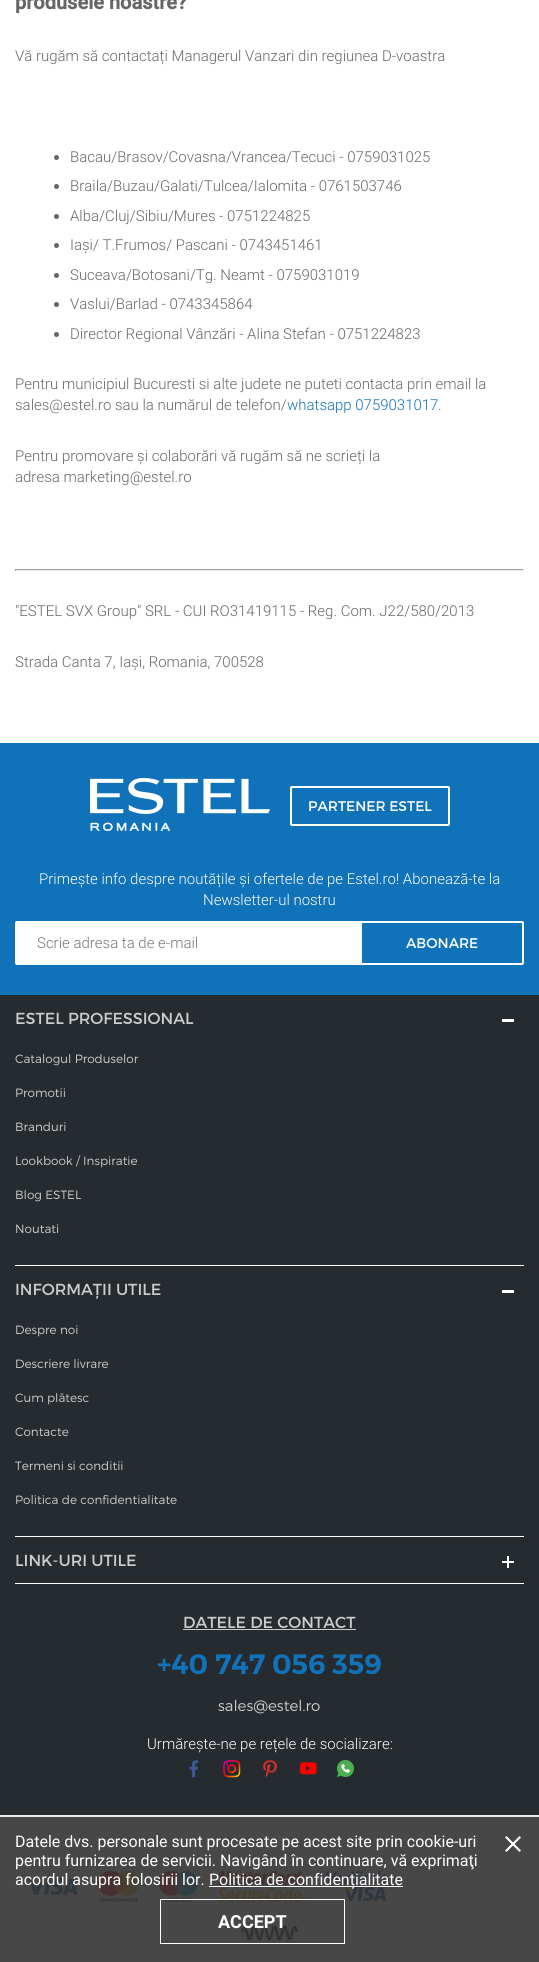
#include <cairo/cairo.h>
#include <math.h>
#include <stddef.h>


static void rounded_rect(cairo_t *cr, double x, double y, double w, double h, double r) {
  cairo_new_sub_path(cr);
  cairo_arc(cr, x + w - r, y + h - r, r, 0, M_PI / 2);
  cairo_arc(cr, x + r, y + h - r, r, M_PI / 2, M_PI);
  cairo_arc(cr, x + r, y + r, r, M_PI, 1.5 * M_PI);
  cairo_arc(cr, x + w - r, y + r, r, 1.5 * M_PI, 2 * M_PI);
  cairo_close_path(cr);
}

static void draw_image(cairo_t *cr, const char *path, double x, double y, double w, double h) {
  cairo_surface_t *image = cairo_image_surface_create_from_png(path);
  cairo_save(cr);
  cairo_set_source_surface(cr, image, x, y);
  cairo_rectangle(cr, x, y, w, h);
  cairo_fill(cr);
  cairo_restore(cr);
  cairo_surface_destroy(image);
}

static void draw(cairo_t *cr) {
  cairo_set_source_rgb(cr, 1, 1, 1);
  cairo_paint(cr);
  cairo_set_source_rgb(cr, 102 / 255.0, 102 / 255.0, 102 / 255.0);
  cairo_arc(cr, 56.5, 157.5, 2.5, 0, 2 * M_PI);
  cairo_fill(cr);
  cairo_arc(cr, 56.5, 186.5, 2.5, 0, 2 * M_PI);
  cairo_fill(cr);
  cairo_arc(cr, 56.5, 216.5, 2.5, 0, 2 * M_PI);
  cairo_fill(cr);
  cairo_arc(cr, 56.5, 245.5, 2.5, 0, 2 * M_PI);
  cairo_fill(cr);
  cairo_arc(cr, 56.5, 275.5, 2.5, 0, 2 * M_PI);
  cairo_fill(cr);
  cairo_arc(cr, 56.5, 304.5, 2.5, 0, 2 * M_PI);
  cairo_fill(cr);
  cairo_arc(cr, 56.5, 334.5, 2.5, 0, 2 * M_PI);
  cairo_fill(cr);
  cairo_set_source_rgb(cr, 159 / 255.0, 159 / 255.0, 159 / 255.0);
  cairo_rectangle(cr, 15, 569, 509, 1);
  cairo_fill(cr);
  cairo_set_source_rgb(cr, 238 / 255.0, 238 / 255.0, 238 / 255.0);
  cairo_rectangle(cr, 523, 569, 1, 2);
  cairo_fill(cr);
  cairo_rectangle(cr, 15, 570, 509, 1);
  cairo_fill(cr);
  cairo_set_source_rgb(cr, 159 / 255.0, 159 / 255.0, 159 / 255.0);
  cairo_rectangle(cr, 15, 569, 1, 2);
  cairo_fill(cr);
  cairo_set_source_rgb(cr, 16 / 255.0, 114 / 255.0, 185 / 255.0);
  cairo_rectangle(cr, 0, 743, 539, 252);
  cairo_fill(cr);
  draw_image(cr, "images/1.png", 90, 778, 180, 53);
  rounded_rect(cr, 291, 787, 158, 38, 1);
  cairo_set_source_rgb(cr, 1, 1, 1);
  cairo_stroke(cr);
  rounded_rect(cr, 16, 922, 507, 42, 1);
  cairo_stroke(cr);
  cairo_rectangle(cr, 17, 923, 345, 40);
  cairo_fill(cr);
  cairo_set_source_rgb(cr, 38 / 255.0, 43 / 255.0, 48 / 255.0);
  cairo_rectangle(cr, 0, 995, 539, 820);
  cairo_fill(cr);
  cairo_set_source_rgb(cr, 1, 1, 1);
  cairo_rectangle(cr, 15, 1265, 509, 1);
  cairo_fill(cr);
  cairo_rectangle(cr, 502, 1019, 12, 3);
  cairo_fill(cr);
  cairo_rectangle(cr, 15, 1536, 509, 1);
  cairo_fill(cr);
  cairo_rectangle(cr, 502, 1290, 12, 3);
  cairo_fill(cr);
  cairo_rectangle(cr, 15, 1583, 509, 1);
  cairo_fill(cr);
  cairo_rectangle(cr, 502, 1561, 12, 2);
  cairo_fill(cr);
  cairo_rectangle(cr, 507, 1556, 2, 12);
  cairo_fill(cr);
  cairo_set_source_rgb(cr, 204 / 255.0, 204 / 255.0, 204 / 255.0);
  cairo_rectangle(cr, 183, 1629, 173, 1);
  cairo_fill(cr);
  draw_image(cr, "images/2.png", 189, 1760, 10, 18);
  draw_image(cr, "images/3.png", 223, 1760, 18, 18);
  draw_image(cr, "images/4.png", 263, 1760, 14, 18);
  draw_image(cr, "images/5.png", 300, 1761, 17, 14);
  draw_image(cr, "images/6.png", 337, 1760, 17, 17);
  cairo_set_source_rgb(cr, 235 / 255.0, 235 / 255.0, 235 / 255.0);
  cairo_rectangle(cr, 0, 1815, 539, 147);
  cairo_fill(cr);
  draw_image(cr, "images/7.png", 25, 1878, 53, 17);
  draw_image(cr, "images/8.png", 98, 1871, 41, 31);
  draw_image(cr, "images/9.png", 159, 1871, 39, 31);
  draw_image(cr, "images/10.png", 218, 1871, 88, 31);
  draw_image(cr, "images/11.png", 326, 1871, 70, 30);
  draw_image(cr, "images/12.png", 241, 1926, 57, 14);
  cairo_set_source_rgba(cr, 54 / 255.0, 54 / 255.0, 54 / 255.0, 0.9);
  cairo_rectangle(cr, 0, 1817, 539, 145);
  cairo_fill(cr);
  cairo_set_source_rgb(cr, 1, 1, 1);
  cairo_rectangle(cr, 209, 1886, 194, 1);
  cairo_fill(cr);
  cairo_new_path(cr);
  cairo_move_to(cr, 506.5, 1836);
  cairo_line_to(cr, 521, 1850.5);
  cairo_line_to(cr, 519.5, 1852);
  cairo_line_to(cr, 505, 1837.5);
  cairo_close_path(cr);
  cairo_fill(cr);
  cairo_new_path(cr);
  cairo_move_to(cr, 505, 1850.5);
  cairo_line_to(cr, 519.5, 1836);
  cairo_line_to(cr, 521, 1837.5);
  cairo_line_to(cr, 506.5, 1852);
  cairo_close_path(cr);
  cairo_fill(cr);
  cairo_rectangle(cr, 160.5, 1899.5, 184, 44);
  cairo_set_line_width(cr, 1);
  cairo_stroke(cr);
  cairo_select_font_face(cr, "Roboto", CAIRO_FONT_SLANT_NORMAL, CAIRO_FONT_WEIGHT_BOLD);
  cairo_set_font_size(cr, 20);
  cairo_set_source_rgb(cr, 102 / 255.0, 102 / 255.0, 102 / 255.0);
  cairo_move_to(cr, 15, 9);
  cairo_show_text(cr, "produsele noastre?");
  cairo_select_font_face(cr, "Roboto Light", CAIRO_FONT_SLANT_NORMAL, CAIRO_FONT_WEIGHT_NORMAL);
  cairo_set_font_size(cr, 15);
  cairo_move_to(cr, 15, 61);
  cairo_show_text(cr, "Vă rugăm să contactați Managerul Vanzari din regiunea D-voastra");
  cairo_move_to(cr, 70, 162);
  cairo_show_text(cr, "Bacau/Brasov/Covasna/Vrancea/Tecuci - 0759031025");
  cairo_move_to(cr, 70, 191);
  cairo_show_text(cr, "Braila/Buzau/Galati/Tulcea/Ialomita - 0761503746");
  cairo_move_to(cr, 70, 221);
  cairo_show_text(cr, "Alba/Cluj/Sibiu/Mures - 0751224825");
  cairo_move_to(cr, 70, 250);
  cairo_show_text(cr, "Iași/ T.Frumos/ Pascani - 0743451461");
  cairo_move_to(cr, 70, 280);
  cairo_show_text(cr, "Suceava/Botosani/Tg. Neamt - 0759031019");
  cairo_move_to(cr, 70, 309);
  cairo_show_text(cr, "Vaslui/Barlad - 0743345864");
  cairo_move_to(cr, 70, 339);
  cairo_show_text(cr, "Director Regional Vânzări - Alina Stefan - 0751224823");
  cairo_move_to(cr, 15, 389);
  cairo_show_text(cr, "Pentru municipiul Bucuresti si alte judete ne puteti contacta prin email la");
  cairo_move_to(cr, 15, 410);
  cairo_show_text(cr, "sales@estel.ro sau la numărul de telefon/");
  cairo_set_source_rgb(cr, 16 / 255.0, 114 / 255.0, 185 / 255.0);
  cairo_move_to(cr, 287, 410);
  cairo_show_text(cr, "whatsapp 0759031017");
  cairo_set_source_rgb(cr, 102 / 255.0, 102 / 255.0, 102 / 255.0);
  cairo_move_to(cr, 438, 410);
  cairo_show_text(cr, ".");
  cairo_move_to(cr, 15, 461);
  cairo_show_text(cr, "Pentru promovare și colaborări vă rugăm să ne scrieți la");
  cairo_move_to(cr, 15, 482);
  cairo_show_text(cr, "adresa marketing@estel.ro");
  cairo_move_to(cr, 15, 616);
  cairo_show_text(cr, "\"ESTEL SVX Group\" SRL - CUI RO31419115 - Reg. Com. J22/580/2013");
  cairo_move_to(cr, 15, 667);
  cairo_show_text(cr, "Strada Canta 7, Iași, Romania, 700528");
  cairo_select_font_face(cr, "Montserrat", CAIRO_FONT_SLANT_NORMAL, CAIRO_FONT_WEIGHT_NORMAL);
  cairo_set_font_size(cr, 14);
  cairo_set_source_rgb(cr, 1, 1, 1);
  cairo_move_to(cr, 308, 811);
  cairo_show_text(cr, "PARTENER ESTEL");
  cairo_select_font_face(cr, "Roboto Light", CAIRO_FONT_SLANT_NORMAL, CAIRO_FONT_WEIGHT_NORMAL);
  cairo_set_font_size(cr, 15);
  cairo_move_to(cr, 39, 884);
  cairo_show_text(cr, "Primește info despre noutățile și ofertele de pe Estel.ro! Abonează-te la");
  cairo_move_to(cr, 203, 905);
  cairo_show_text(cr, "Newsletter-ul nostru");
  cairo_set_source_rgb(cr, 117 / 255.0, 117 / 255.0, 117 / 255.0);
  cairo_move_to(cr, 37, 948);
  cairo_show_text(cr, "Scrie adresa ta de e-mail");
  cairo_select_font_face(cr, "Montserrat", CAIRO_FONT_SLANT_NORMAL, CAIRO_FONT_WEIGHT_NORMAL);
  cairo_set_font_size(cr, 14);
  cairo_set_source_rgb(cr, 1, 1, 1);
  cairo_move_to(cr, 406, 948);
  cairo_show_text(cr, "ABONARE");
  cairo_set_font_size(cr, 16);
  cairo_set_source_rgb(cr, 204 / 255.0, 204 / 255.0, 204 / 255.0);
  cairo_move_to(cr, 15, 1024);
  cairo_show_text(cr, "ESTEL PROFESSIONAL");
  cairo_select_font_face(cr, "Montserrat Light", CAIRO_FONT_SLANT_NORMAL, CAIRO_FONT_WEIGHT_NORMAL);
  cairo_set_font_size(cr, 12);
  cairo_move_to(cr, 15, 1063);
  cairo_show_text(cr, "Catalogul Produselor");
  cairo_move_to(cr, 15, 1097);
  cairo_show_text(cr, "Promotii");
  cairo_move_to(cr, 15, 1131);
  cairo_show_text(cr, "Branduri");
  cairo_move_to(cr, 15, 1165);
  cairo_show_text(cr, "Lookbook / Inspiratie");
  cairo_move_to(cr, 15, 1199);
  cairo_show_text(cr, "Blog ESTEL");
  cairo_move_to(cr, 15, 1233);
  cairo_show_text(cr, "Noutati");
  cairo_select_font_face(cr, "Montserrat", CAIRO_FONT_SLANT_NORMAL, CAIRO_FONT_WEIGHT_NORMAL);
  cairo_set_font_size(cr, 16);
  cairo_move_to(cr, 15, 1295);
  cairo_show_text(cr, "INFORMAȚII UTILE");
  cairo_select_font_face(cr, "Montserrat Light", CAIRO_FONT_SLANT_NORMAL, CAIRO_FONT_WEIGHT_NORMAL);
  cairo_set_font_size(cr, 12);
  cairo_move_to(cr, 15, 1334);
  cairo_show_text(cr, "Despre noi");
  cairo_move_to(cr, 15, 1368);
  cairo_show_text(cr, "Descriere livrare");
  cairo_move_to(cr, 15, 1402);
  cairo_show_text(cr, "Cum plătesc");
  cairo_move_to(cr, 15, 1436);
  cairo_show_text(cr, "Contacte");
  cairo_move_to(cr, 15, 1470);
  cairo_show_text(cr, "Termeni si conditii");
  cairo_move_to(cr, 15, 1504);
  cairo_show_text(cr, "Politica de confidentialitate");
  cairo_select_font_face(cr, "Montserrat", CAIRO_FONT_SLANT_NORMAL, CAIRO_FONT_WEIGHT_NORMAL);
  cairo_set_font_size(cr, 16);
  cairo_move_to(cr, 15, 1566);
  cairo_show_text(cr, "LINK-URI UTILE");
  cairo_move_to(cr, 183, 1628);
  cairo_show_text(cr, "DATELE DE CONTACT");
  cairo_select_font_face(cr, "Montserrat SemiBold", CAIRO_FONT_SLANT_NORMAL, CAIRO_FONT_WEIGHT_NORMAL);
  cairo_set_font_size(cr, 28);
  cairo_set_source_rgb(cr, 16 / 255.0, 114 / 255.0, 185 / 255.0);
  cairo_move_to(cr, 157, 1674);
  cairo_show_text(cr, "+40 747 056 359");
  cairo_select_font_face(cr, "Montserrat Light", CAIRO_FONT_SLANT_NORMAL, CAIRO_FONT_WEIGHT_NORMAL);
  cairo_set_font_size(cr, 15);
  cairo_set_source_rgb(cr, 204 / 255.0, 204 / 255.0, 204 / 255.0);
  cairo_move_to(cr, 218, 1711);
  cairo_show_text(cr, "sales@estel.ro");
  cairo_select_font_face(cr, "Roboto Light", CAIRO_FONT_SLANT_NORMAL, CAIRO_FONT_WEIGHT_NORMAL);
  cairo_set_source_rgb(cr, 1, 1, 1);
  cairo_move_to(cr, 147, 1749);
  cairo_show_text(cr, "Urmărește-ne pe rețele de socializare:");
  cairo_select_font_face(cr, "Roboto", CAIRO_FONT_SLANT_NORMAL, CAIRO_FONT_WEIGHT_NORMAL);
  cairo_set_font_size(cr, 16);
  cairo_move_to(cr, 15, 1847);
  cairo_show_text(cr, "Datele dvs. personale sunt procesate pe acest site prin cookie-uri");
  cairo_move_to(cr, 15, 1866);
  cairo_show_text(cr, "pentru furnizarea de servicii. Navigând în continuare, vă exprimaţi");
  cairo_move_to(cr, 15, 1885);
  cairo_show_text(cr, "acordul asupra folosirii lor.");
  cairo_move_to(cr, 209, 1885);
  cairo_show_text(cr, "Politica de confidențialitate");
  cairo_select_font_face(cr, "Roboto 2", CAIRO_FONT_SLANT_NORMAL, CAIRO_FONT_WEIGHT_BOLD);
  cairo_set_font_size(cr, 18);
  cairo_move_to(cr, 218, 1928);
  cairo_show_text(cr, "ACCEPT");
}

int main(void) {
  cairo_surface_t *surface = cairo_image_surface_create(CAIRO_FORMAT_RGB24, 539, 1962);
  cairo_t *cr = cairo_create(surface);
  cairo_font_options_t *options = cairo_font_options_create();
  cairo_font_options_set_hint_metrics(options, CAIRO_HINT_METRICS_OFF);
  cairo_font_options_set_hint_style(options, CAIRO_HINT_STYLE_NONE);
  cairo_set_font_options(cr, options);
  cairo_set_miter_limit(cr, 4);
  draw(cr);
  cairo_surface_write_to_png(surface, "out.png");
  cairo_font_options_destroy(options);
  cairo_destroy(cr);
  cairo_surface_destroy(surface);
  return 0;
}
